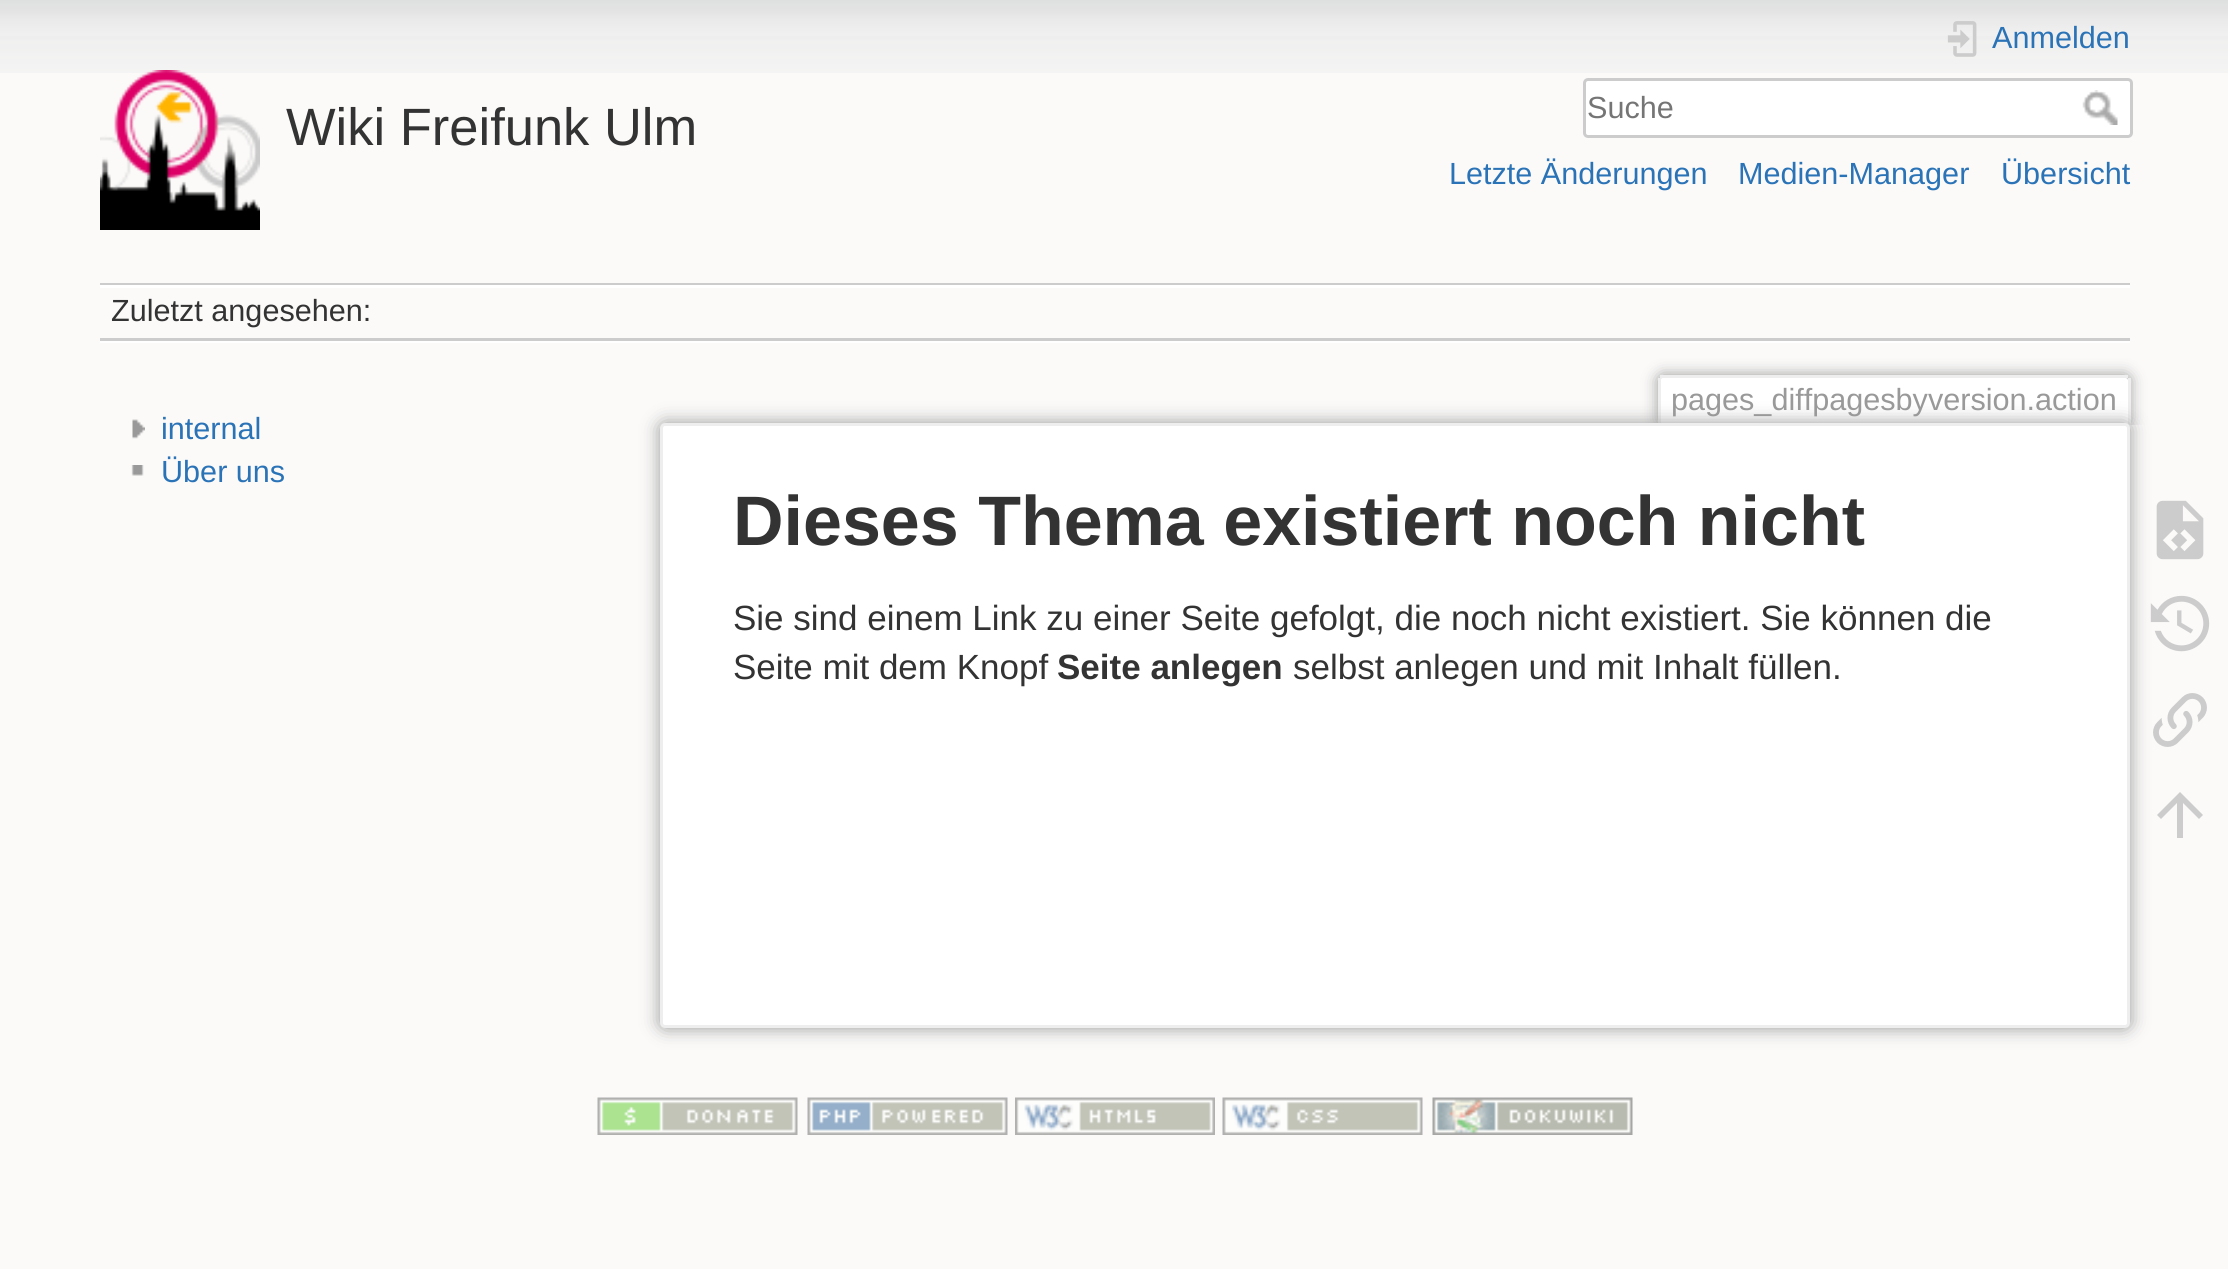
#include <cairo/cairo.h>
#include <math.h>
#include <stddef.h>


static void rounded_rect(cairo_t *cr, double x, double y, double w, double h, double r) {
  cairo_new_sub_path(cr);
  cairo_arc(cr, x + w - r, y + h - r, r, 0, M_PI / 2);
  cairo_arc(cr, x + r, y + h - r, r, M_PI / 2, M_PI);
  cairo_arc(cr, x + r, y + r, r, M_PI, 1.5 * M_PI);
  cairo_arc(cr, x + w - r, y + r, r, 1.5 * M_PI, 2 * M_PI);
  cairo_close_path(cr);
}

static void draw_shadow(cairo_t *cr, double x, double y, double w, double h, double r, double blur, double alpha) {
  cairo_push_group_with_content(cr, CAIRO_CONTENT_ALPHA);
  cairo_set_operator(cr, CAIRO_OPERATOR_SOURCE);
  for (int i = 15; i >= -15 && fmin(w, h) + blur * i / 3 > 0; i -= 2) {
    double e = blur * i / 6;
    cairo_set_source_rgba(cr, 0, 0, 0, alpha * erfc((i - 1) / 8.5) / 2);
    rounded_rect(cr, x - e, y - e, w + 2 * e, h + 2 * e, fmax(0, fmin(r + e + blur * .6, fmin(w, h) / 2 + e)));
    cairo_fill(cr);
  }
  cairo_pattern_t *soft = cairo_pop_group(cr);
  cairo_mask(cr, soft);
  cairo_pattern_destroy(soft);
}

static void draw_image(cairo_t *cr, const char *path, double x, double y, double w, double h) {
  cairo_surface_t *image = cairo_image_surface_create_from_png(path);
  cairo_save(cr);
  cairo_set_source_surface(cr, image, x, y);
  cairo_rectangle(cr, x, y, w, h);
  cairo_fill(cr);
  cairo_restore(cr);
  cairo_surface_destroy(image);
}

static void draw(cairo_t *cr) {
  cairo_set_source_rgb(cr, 251 / 255.0, 250 / 255.0, 249 / 255.0);
  cairo_paint(cr);
  draw_image(cr, "images/1.png", 0, 0, 2228, 73);
  draw_image(cr, "images/2.png", 100, 70, 160, 160);
  draw_image(cr, "images/3.png", 1947, 21, 30, 36);
  cairo_set_source_rgb(cr, 1, 1, 1);
  rounded_rect(cr, 1584.5, 79.5, 547, 57, 3.5);
  cairo_fill_preserve(cr);
  cairo_set_source_rgb(cr, 204 / 255.0, 204 / 255.0, 204 / 255.0);
  cairo_set_line_width(cr, 3);
  cairo_stroke(cr);
  draw_image(cr, "images/4.png", 2082, 90, 36, 35);
  cairo_rectangle(cr, 100, 283, 2030, 2);
  cairo_fill(cr);
  cairo_set_source_rgb(cr, 1, 1, 1);
  cairo_rectangle(cr, 100, 341, 2030, 2);
  cairo_fill(cr);
  cairo_rectangle(cr, 100, 285, 2030, 3);
  cairo_fill(cr);
  cairo_set_source_rgb(cr, 204 / 255.0, 204 / 255.0, 204 / 255.0);
  cairo_rectangle(cr, 100, 338, 2030, 3);
  cairo_fill(cr);
  draw_image(cr, "images/5.png", 132, 419, 13, 20);
  draw_image(cr, "images/6.png", 131, 465, 13, 11);
  cairo_save(cr);
  cairo_rectangle(cr, 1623, 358, 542, 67);
  cairo_clip(cr);
  cairo_set_source_rgb(cr, 153 / 255.0, 153 / 255.0, 153 / 255.0);
  draw_shadow(cr, 1658, 375, 472, 50, 5, 7.5, 1);
  cairo_restore(cr);
  cairo_set_source_rgb(cr, 1, 1, 1);
  cairo_new_path(cr);
  cairo_move_to(cr, 1662.5, 378);
  cairo_line_to(cr, 2125.5, 378);
  cairo_curve_to(cr, 2127, 378, 2128, 379, 2128, 380.5);
  cairo_line_to(cr, 2128, 425);
  cairo_line_to(cr, 1660, 425);
  cairo_line_to(cr, 1660, 380.5);
  cairo_curve_to(cr, 1660, 379, 1661, 378, 1662.5, 378);
  cairo_close_path(cr);
  cairo_fill(cr);
  cairo_set_source_rgb(cr, 238 / 255.0, 238 / 255.0, 238 / 255.0);
  cairo_rectangle(cr, 1660, 375, 468, 3);
  cairo_fill(cr);
  cairo_rectangle(cr, 2128, 378, 3, 47);
  cairo_fill(cr);
  cairo_rectangle(cr, 1658, 378, 3, 47);
  cairo_fill(cr);
  cairo_set_source_rgb(cr, 153 / 255.0, 153 / 255.0, 153 / 255.0);
  draw_shadow(cr, 660, 423, 1470, 605, 5, 9, 1);
  cairo_set_source_rgb(cr, 1, 1, 1);
  rounded_rect(cr, 661.5, 424.5, 1467, 602, 3.5);
  cairo_fill_preserve(cr);
  cairo_set_source_rgb(cr, 238 / 255.0, 238 / 255.0, 238 / 255.0);
  cairo_stroke(cr);
  draw_image(cr, "images/7.png", 2156, 500, 48, 60);
  draw_image(cr, "images/8.png", 2150, 595, 60, 57);
  draw_image(cr, "images/9.png", 2153, 693, 54, 54);
  cairo_set_source_rgb(cr, 204 / 255.0, 204 / 255.0, 204 / 255.0);
  cairo_new_path(cr);
  cairo_move_to(cr, 2183, 838);
  cairo_line_to(cr, 2177, 838);
  cairo_line_to(cr, 2177, 803);
  cairo_line_to(cr, 2161, 819);
  cairo_line_to(cr, 2157, 815);
  cairo_line_to(cr, 2180, 792);
  cairo_line_to(cr, 2203, 815);
  cairo_line_to(cr, 2199, 819);
  cairo_line_to(cr, 2183, 803);
  cairo_close_path(cr);
  cairo_fill(cr);
  draw_image(cr, "images/10.png", 597, 1097, 201, 38);
  draw_image(cr, "images/11.png", 807, 1097, 201, 38);
  draw_image(cr, "images/12.png", 1015, 1097, 200, 38);
  draw_image(cr, "images/13.png", 1222, 1097, 201, 38);
  draw_image(cr, "images/14.png", 1432, 1097, 201, 38);
  cairo_select_font_face(cr, "Liberation Sans", CAIRO_FONT_SLANT_NORMAL, CAIRO_FONT_WEIGHT_NORMAL);
  cairo_set_font_size(cr, 52.5);
  cairo_set_source_rgb(cr, 51 / 255.0, 51 / 255.0, 51 / 255.0);
  cairo_move_to(cr, 286, 145);
  cairo_show_text(cr, "Wiki Freifunk Ulm");
  cairo_set_font_size(cr, 30.6);
  cairo_set_source_rgb(cr, 43 / 255.0, 115 / 255.0, 183 / 255.0);
  cairo_move_to(cr, 1992, 48);
  cairo_show_text(cr, "Anmelden");
  cairo_set_source_rgb(cr, 117 / 255.0, 117 / 255.0, 117 / 255.0);
  cairo_move_to(cr, 1587, 118);
  cairo_show_text(cr, "Suche");
  cairo_set_source_rgb(cr, 43 / 255.0, 115 / 255.0, 183 / 255.0);
  cairo_move_to(cr, 1449, 184);
  cairo_show_text(cr, "Letzte Änderungen");
  cairo_move_to(cr, 1738, 184);
  cairo_show_text(cr, "Medien-Manager");
  cairo_move_to(cr, 2001, 184);
  cairo_show_text(cr, "Übersicht");
  cairo_set_source_rgb(cr, 51 / 255.0, 51 / 255.0, 51 / 255.0);
  cairo_move_to(cr, 111, 321);
  cairo_show_text(cr, "Zuletzt angesehen:");
  cairo_set_source_rgb(cr, 43 / 255.0, 115 / 255.0, 183 / 255.0);
  cairo_move_to(cr, 161, 439);
  cairo_show_text(cr, "internal");
  cairo_move_to(cr, 161, 482);
  cairo_show_text(cr, "Über uns");
  cairo_set_source_rgb(cr, 153 / 255.0, 153 / 255.0, 153 / 255.0);
  cairo_move_to(cr, 1671, 410);
  cairo_show_text(cr, "pages_diffpagesbyversion.action");
  cairo_select_font_face(cr, "Liberation Sans", CAIRO_FONT_SLANT_NORMAL, CAIRO_FONT_WEIGHT_BOLD);
  cairo_set_font_size(cr, 70);
  cairo_set_source_rgb(cr, 51 / 255.0, 51 / 255.0, 51 / 255.0);
  cairo_move_to(cr, 733, 545);
  cairo_show_text(cr, "Dieses Thema existiert noch nicht");
  cairo_select_font_face(cr, "Liberation Sans", CAIRO_FONT_SLANT_NORMAL, CAIRO_FONT_WEIGHT_NORMAL);
  cairo_set_font_size(cr, 35);
  cairo_move_to(cr, 733, 630);
  cairo_show_text(cr, "Sie sind einem Link zu einer Seite gefolgt, die noch nicht existiert. Sie können die");
  cairo_move_to(cr, 733, 679);
  cairo_show_text(cr, "Seite mit dem Knopf");
  cairo_select_font_face(cr, "Liberation Sans", CAIRO_FONT_SLANT_NORMAL, CAIRO_FONT_WEIGHT_BOLD);
  cairo_move_to(cr, 1057, 679);
  cairo_show_text(cr, "Seite anlegen");
  cairo_select_font_face(cr, "Liberation Sans", CAIRO_FONT_SLANT_NORMAL, CAIRO_FONT_WEIGHT_NORMAL);
  cairo_move_to(cr, 1293, 679);
  cairo_show_text(cr, "selbst anlegen und mit Inhalt füllen.");
}

int main(void) {
  cairo_surface_t *surface = cairo_image_surface_create(CAIRO_FORMAT_RGB24, 2228, 1269);
  cairo_t *cr = cairo_create(surface);
  cairo_font_options_t *options = cairo_font_options_create();
  cairo_font_options_set_hint_metrics(options, CAIRO_HINT_METRICS_OFF);
  cairo_font_options_set_hint_style(options, CAIRO_HINT_STYLE_NONE);
  cairo_set_font_options(cr, options);
  cairo_set_miter_limit(cr, 4);
  draw(cr);
  cairo_surface_write_to_png(surface, "out.png");
  cairo_font_options_destroy(options);
  cairo_destroy(cr);
  cairo_surface_destroy(surface);
  return 0;
}
